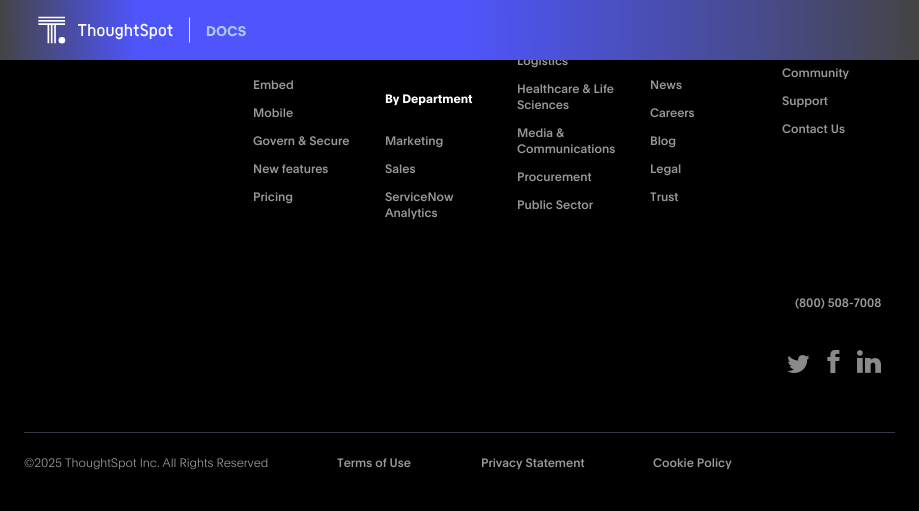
#include <cairo/cairo.h>
#include <math.h>
#include <stddef.h>


static void draw_image(cairo_t *cr, const char *path, double x, double y, double w, double h) {
  cairo_surface_t *image = cairo_image_surface_create_from_png(path);
  cairo_save(cr);
  cairo_set_source_surface(cr, image, x, y);
  cairo_rectangle(cr, x, y, w, h);
  cairo_fill(cr);
  cairo_restore(cr);
  cairo_surface_destroy(image);
}

static void draw(cairo_t *cr) {
  cairo_pattern_t *gradient;
  cairo_set_source_rgb(cr, 0, 0, 0);
  cairo_paint(cr);
  draw_image(cr, "images/2.png", 787, 355, 23, 18);
  draw_image(cr, "images/3.png", 827, 350, 13, 23);
  draw_image(cr, "images/4.png", 857, 350, 24, 23);
  cairo_set_source_rgb(cr, 53 / 255.0, 58 / 255.0, 68 / 255.0);
  cairo_rectangle(cr, 24, 432, 871, 1);
  cairo_fill(cr);
  cairo_select_font_face(cr, "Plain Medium", CAIRO_FONT_SLANT_NORMAL, CAIRO_FONT_WEIGHT_NORMAL);
  cairo_set_font_size(cr, 12);
  cairo_set_source_rgb(cr, 153 / 255.0, 153 / 255.0, 153 / 255.0);
  cairo_move_to(cr, 253, 89);
  cairo_show_text(cr, "Embed");
  cairo_move_to(cr, 253, 117);
  cairo_show_text(cr, "Mobile");
  cairo_move_to(cr, 253, 145);
  cairo_show_text(cr, "Govern & Secure");
  cairo_move_to(cr, 253, 173);
  cairo_show_text(cr, "New features");
  cairo_move_to(cr, 253, 201);
  cairo_show_text(cr, "Pricing");
  cairo_select_font_face(cr, "Plain", CAIRO_FONT_SLANT_NORMAL, CAIRO_FONT_WEIGHT_BOLD);
  cairo_set_source_rgb(cr, 1, 1, 1);
  cairo_move_to(cr, 385, 103);
  cairo_show_text(cr, "By Department");
  cairo_select_font_face(cr, "Plain Medium", CAIRO_FONT_SLANT_NORMAL, CAIRO_FONT_WEIGHT_NORMAL);
  cairo_set_source_rgb(cr, 153 / 255.0, 153 / 255.0, 153 / 255.0);
  cairo_move_to(cr, 385, 145);
  cairo_show_text(cr, "Marketing");
  cairo_move_to(cr, 385, 173);
  cairo_show_text(cr, "Sales");
  cairo_move_to(cr, 385, 201);
  cairo_show_text(cr, "ServiceNow");
  cairo_move_to(cr, 385, 217);
  cairo_show_text(cr, "Analytics");
  cairo_move_to(cr, 517, 65);
  cairo_show_text(cr, "Logistics");
  gradient = cairo_pattern_create_linear(-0.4, 38, 919, 22);
  cairo_pattern_add_color_stop_rgba(gradient, 0, 68 / 255.0, 68 / 255.0, 68 / 255.0, 1);
  cairo_pattern_add_color_stop_rgba(gradient, 0.15, 78 / 255.0, 85 / 255.0, 253 / 255.0, 1);
  cairo_pattern_add_color_stop_rgba(gradient, 0.5, 78 / 255.0, 85 / 255.0, 253 / 255.0, 1);
  cairo_pattern_add_color_stop_rgba(gradient, 0.85, 71 / 255.0, 74 / 255.0, 130 / 255.0, 1);
  cairo_pattern_add_color_stop_rgba(gradient, 1, 68 / 255.0, 68 / 255.0, 68 / 255.0, 1);
  cairo_set_source(cr, gradient);
  cairo_pattern_destroy(gradient);
  cairo_rectangle(cr, 0, 0, 919, 60);
  cairo_fill(cr);
  draw_image(cr, "images/1.png", 38, 16, 208, 28);
  cairo_set_source_rgb(cr, 153 / 255.0, 153 / 255.0, 153 / 255.0);
  cairo_move_to(cr, 517, 93);
  cairo_show_text(cr, "Healthcare & Life");
  cairo_move_to(cr, 517, 109);
  cairo_show_text(cr, "Sciences");
  cairo_move_to(cr, 517, 137);
  cairo_show_text(cr, "Media &");
  cairo_move_to(cr, 517, 153);
  cairo_show_text(cr, "Communications");
  cairo_move_to(cr, 517, 181);
  cairo_show_text(cr, "Procurement");
  cairo_move_to(cr, 517, 209);
  cairo_show_text(cr, "Public Sector");
  cairo_move_to(cr, 650, 89);
  cairo_show_text(cr, "News");
  cairo_move_to(cr, 650, 117);
  cairo_show_text(cr, "Careers");
  cairo_move_to(cr, 650, 145);
  cairo_show_text(cr, "Blog");
  cairo_move_to(cr, 650, 173);
  cairo_show_text(cr, "Legal");
  cairo_move_to(cr, 650, 201);
  cairo_show_text(cr, "Trust");
  cairo_move_to(cr, 782, 77);
  cairo_show_text(cr, "Community");
  cairo_move_to(cr, 782, 105);
  cairo_show_text(cr, "Support");
  cairo_move_to(cr, 782, 133);
  cairo_show_text(cr, "Contact Us");
  cairo_move_to(cr, 795, 307);
  cairo_show_text(cr, "(800) 508-7008");
  cairo_select_font_face(cr, "Plain Thin", CAIRO_FONT_SLANT_NORMAL, CAIRO_FONT_WEIGHT_NORMAL);
  cairo_move_to(cr, 24, 467);
  cairo_show_text(cr, "©2025 ThoughtSpot Inc. All Rights Reserved");
  cairo_select_font_face(cr, "Plain Medium", CAIRO_FONT_SLANT_NORMAL, CAIRO_FONT_WEIGHT_NORMAL);
  cairo_move_to(cr, 337, 467);
  cairo_show_text(cr, "Terms of Use");
  cairo_move_to(cr, 481, 467);
  cairo_show_text(cr, "Privacy Statement");
  cairo_move_to(cr, 653, 467);
  cairo_show_text(cr, "Cookie Policy");
}

int main(void) {
  cairo_surface_t *surface = cairo_image_surface_create(CAIRO_FORMAT_RGB24, 919, 511);
  cairo_t *cr = cairo_create(surface);
  cairo_font_options_t *options = cairo_font_options_create();
  cairo_font_options_set_hint_metrics(options, CAIRO_HINT_METRICS_OFF);
  cairo_font_options_set_hint_style(options, CAIRO_HINT_STYLE_NONE);
  cairo_set_font_options(cr, options);
  cairo_set_miter_limit(cr, 4);
  draw(cr);
  cairo_surface_write_to_png(surface, "out.png");
  cairo_font_options_destroy(options);
  cairo_destroy(cr);
  cairo_surface_destroy(surface);
  return 0;
}
